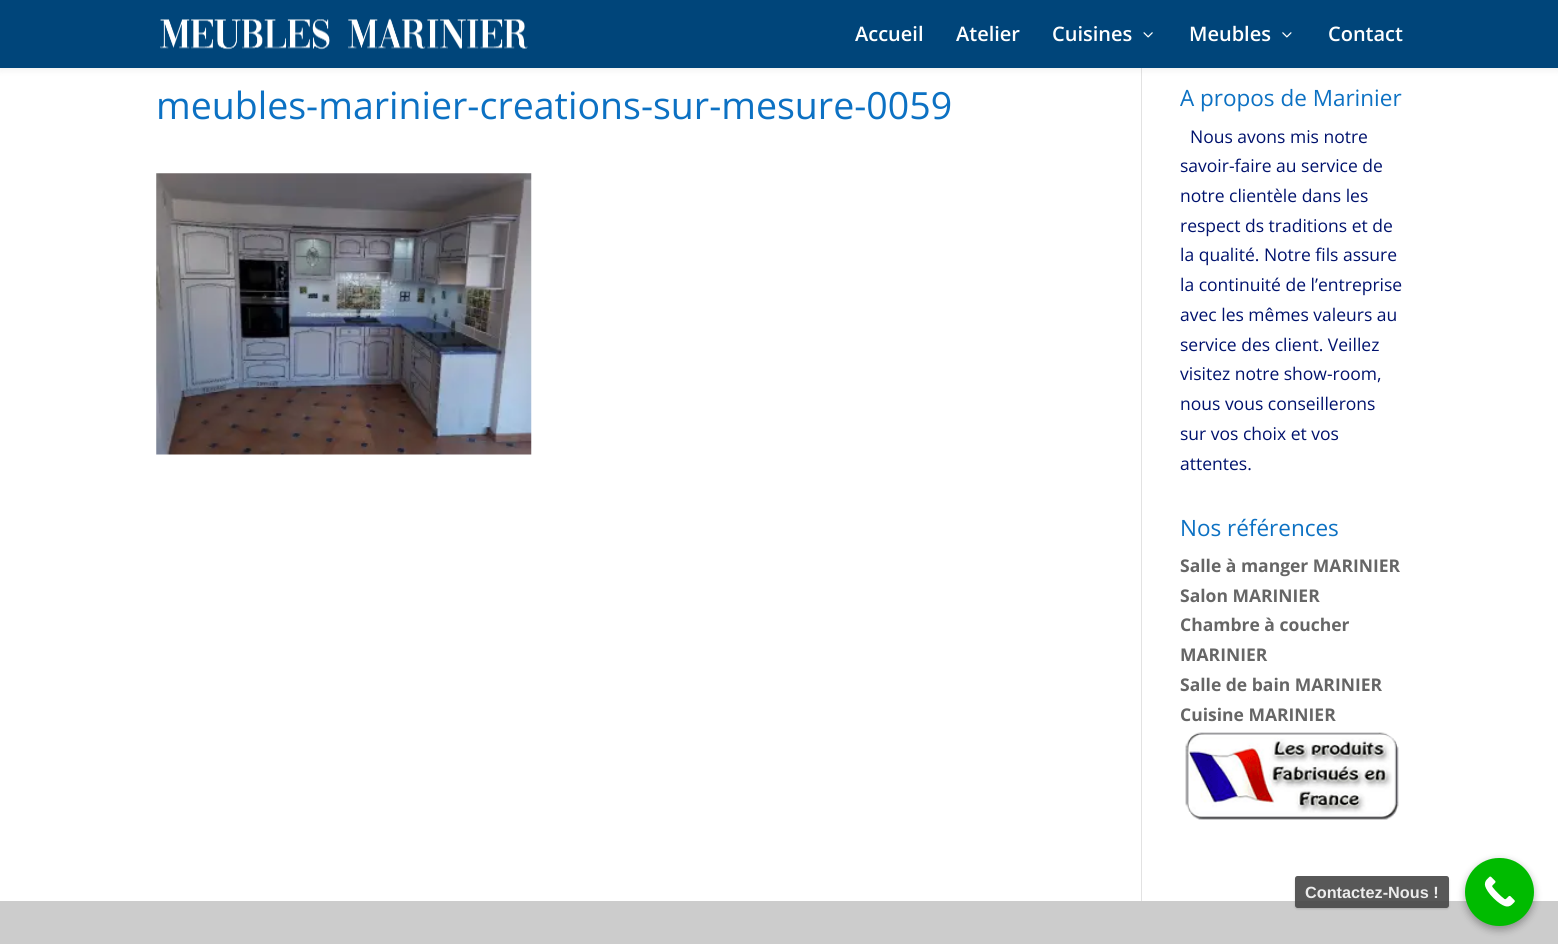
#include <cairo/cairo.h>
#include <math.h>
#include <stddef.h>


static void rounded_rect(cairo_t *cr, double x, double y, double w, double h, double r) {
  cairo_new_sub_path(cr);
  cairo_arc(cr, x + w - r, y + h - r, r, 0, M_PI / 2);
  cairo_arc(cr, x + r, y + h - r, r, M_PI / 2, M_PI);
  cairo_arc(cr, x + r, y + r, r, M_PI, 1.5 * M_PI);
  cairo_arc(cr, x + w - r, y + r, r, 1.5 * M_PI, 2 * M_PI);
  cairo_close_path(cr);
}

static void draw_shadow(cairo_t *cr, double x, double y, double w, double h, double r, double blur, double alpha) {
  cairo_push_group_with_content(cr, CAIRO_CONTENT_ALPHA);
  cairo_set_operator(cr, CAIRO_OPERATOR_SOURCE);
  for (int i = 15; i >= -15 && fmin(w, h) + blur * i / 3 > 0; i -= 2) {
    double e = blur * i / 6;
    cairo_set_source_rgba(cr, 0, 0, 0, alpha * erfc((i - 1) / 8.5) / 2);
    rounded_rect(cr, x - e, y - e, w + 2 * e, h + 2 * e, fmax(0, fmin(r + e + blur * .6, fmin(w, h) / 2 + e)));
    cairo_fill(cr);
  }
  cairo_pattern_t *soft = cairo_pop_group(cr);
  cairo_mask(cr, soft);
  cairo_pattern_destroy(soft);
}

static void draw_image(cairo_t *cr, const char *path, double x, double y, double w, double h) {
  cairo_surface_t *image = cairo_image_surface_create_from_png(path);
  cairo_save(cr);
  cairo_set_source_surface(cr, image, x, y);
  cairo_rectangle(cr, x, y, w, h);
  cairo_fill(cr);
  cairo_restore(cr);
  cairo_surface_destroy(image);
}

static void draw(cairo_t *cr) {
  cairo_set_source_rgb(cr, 1, 1, 1);
  cairo_paint(cr);
  cairo_set_source_rgb(cr, 226 / 255.0, 226 / 255.0, 226 / 255.0);
  cairo_rectangle(cr, 1141, 68, 1, 833);
  cairo_fill(cr);
  cairo_set_source_rgb(cr, 0, 0, 0);
  draw_shadow(cr, 0, 0, 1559, 68, 0, 4.5, 0.1);
  cairo_set_source_rgb(cr, 0, 69 / 255.0, 122 / 255.0);
  cairo_rectangle(cr, 0, 0, 1558, 68);
  cairo_fill(cr);
  draw_image(cr, "images/1.png", 160, 18, 368, 32);
  draw_image(cr, "images/2.png", 1143, 32, 10, 6);
  draw_image(cr, "images/3.png", 1282, 32, 10, 6);
  draw_image(cr, "images/4.png", 156, 173, 376, 282);
  draw_image(cr, "images/5.png", 1185, 732, 214, 88);
  cairo_set_source_rgb(cr, 204 / 255.0, 204 / 255.0, 204 / 255.0);
  cairo_rectangle(cr, 0, 901, 1558, 43);
  cairo_fill(cr);
  cairo_set_source_rgb(cr, 0, 0, 0);
  draw_shadow(cr, 1465, 861, 69, 69, 34.5, 4, 0.3);
  cairo_set_source_rgb(cr, 0, 187 / 255.0, 0);
  rounded_rect(cr, 1465, 858, 69, 68, 34);
  cairo_fill(cr);
  draw_image(cr, "images/6.png", 1484, 876, 31, 31);
  cairo_save(cr);
  cairo_set_fill_rule(cr, CAIRO_FILL_RULE_EVEN_ODD);
  cairo_new_path(cr);
  cairo_move_to(cr, 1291, 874);
  cairo_line_to(cr, 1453, 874);
  cairo_line_to(cr, 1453, 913);
  cairo_line_to(cr, 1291, 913);
  cairo_close_path(cr);
  cairo_move_to(cr, 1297.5, 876);
  cairo_line_to(cr, 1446.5, 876);
  cairo_curve_to(cr, 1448, 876, 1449, 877, 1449, 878.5);
  cairo_line_to(cr, 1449, 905.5);
  cairo_curve_to(cr, 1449, 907, 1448, 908, 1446.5, 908);
  cairo_line_to(cr, 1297.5, 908);
  cairo_curve_to(cr, 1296, 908, 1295, 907, 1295, 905.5);
  cairo_line_to(cr, 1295, 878.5);
  cairo_curve_to(cr, 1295, 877, 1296, 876, 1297.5, 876);
  cairo_close_path(cr);
  cairo_clip(cr);
  cairo_set_source_rgb(cr, 0, 0, 0);
  draw_shadow(cr, 1295, 878, 154, 31, 2.5, 1, 0.15);
  cairo_restore(cr);
  cairo_set_source_rgba(cr, 70 / 255.0, 70 / 255.0, 70 / 255.0, 0.9);
  rounded_rect(cr, 1295, 876, 154, 32, 2.5);
  cairo_fill(cr);
  cairo_select_font_face(cr, "Open Sans SemiBold", CAIRO_FONT_SLANT_NORMAL, CAIRO_FONT_WEIGHT_NORMAL);
  cairo_set_font_size(cr, 20);
  cairo_set_source_rgb(cr, 1, 1, 1);
  cairo_move_to(cr, 855, 41);
  cairo_show_text(cr, "Accueil");
  cairo_move_to(cr, 956, 41);
  cairo_show_text(cr, "Atelier");
  cairo_move_to(cr, 1052, 41);
  cairo_show_text(cr, "Cuisines");
  cairo_move_to(cr, 1189, 41);
  cairo_show_text(cr, "Meubles");
  cairo_move_to(cr, 1328, 41);
  cairo_show_text(cr, "Contact");
  cairo_select_font_face(cr, "Open Sans", CAIRO_FONT_SLANT_NORMAL, CAIRO_FONT_WEIGHT_NORMAL);
  cairo_set_font_size(cr, 37.5);
  cairo_set_source_rgb(cr, 12 / 255.0, 113 / 255.0, 195 / 255.0);
  cairo_move_to(cr, 156, 119);
  cairo_show_text(cr, "meubles-marinier-creations-sur-mesure-0059");
  cairo_set_font_size(cr, 22.5);
  cairo_move_to(cr, 1180, 106);
  cairo_show_text(cr, "A propos de Marinier");
  cairo_set_font_size(cr, 17.5);
  cairo_set_source_rgb(cr, 0, 18 / 255.0, 109 / 255.0);
  cairo_move_to(cr, 1190, 143);
  cairo_show_text(cr, "Nous avons mis notre");
  cairo_move_to(cr, 1180, 172);
  cairo_show_text(cr, "savoir-faire au service de");
  cairo_move_to(cr, 1180, 202);
  cairo_show_text(cr, "notre clientèle dans les");
  cairo_move_to(cr, 1180, 232);
  cairo_show_text(cr, "respect ds traditions et de");
  cairo_move_to(cr, 1180, 261);
  cairo_show_text(cr, "la qualité. Notre fils assure");
  cairo_move_to(cr, 1180, 291);
  cairo_show_text(cr, "la continuité de l’entreprise");
  cairo_move_to(cr, 1180, 321);
  cairo_show_text(cr, "avec les mêmes valeurs au");
  cairo_move_to(cr, 1180, 351);
  cairo_show_text(cr, "service des client. Veillez");
  cairo_move_to(cr, 1180, 380);
  cairo_show_text(cr, "visitez notre show-room,");
  cairo_move_to(cr, 1180, 410);
  cairo_show_text(cr, "nous vous conseillerons");
  cairo_move_to(cr, 1180, 440);
  cairo_show_text(cr, "sur vos choix et vos");
  cairo_move_to(cr, 1180, 470);
  cairo_show_text(cr, "attentes.");
  cairo_set_font_size(cr, 22.5);
  cairo_set_source_rgb(cr, 12 / 255.0, 113 / 255.0, 195 / 255.0);
  cairo_move_to(cr, 1180, 536);
  cairo_show_text(cr, "Nos références");
  cairo_select_font_face(cr, "Open Sans", CAIRO_FONT_SLANT_NORMAL, CAIRO_FONT_WEIGHT_BOLD);
  cairo_set_font_size(cr, 17.5);
  cairo_set_source_rgb(cr, 102 / 255.0, 102 / 255.0, 102 / 255.0);
  cairo_move_to(cr, 1180, 572);
  cairo_show_text(cr, "Salle à manger MARINIER");
  cairo_move_to(cr, 1180, 602);
  cairo_show_text(cr, "Salon MARINIER");
  cairo_move_to(cr, 1180, 631);
  cairo_show_text(cr, "Chambre à coucher");
  cairo_move_to(cr, 1180, 661);
  cairo_show_text(cr, "MARINIER");
  cairo_move_to(cr, 1180, 691);
  cairo_show_text(cr, "Salle de bain MARINIER");
  cairo_move_to(cr, 1180, 721);
  cairo_show_text(cr, "Cuisine MARINIER");
  cairo_select_font_face(cr, "Liberation Sans", CAIRO_FONT_SLANT_NORMAL, CAIRO_FONT_WEIGHT_BOLD);
  cairo_set_font_size(cr, 16.25);
  cairo_set_source_rgb(cr, 236 / 255.0, 236 / 255.0, 236 / 255.0);
  cairo_move_to(cr, 1305, 898);
  cairo_show_text(cr, "Contactez-Nous !");
}

int main(void) {
  cairo_surface_t *surface = cairo_image_surface_create(CAIRO_FORMAT_RGB24, 1558, 944);
  cairo_t *cr = cairo_create(surface);
  cairo_font_options_t *options = cairo_font_options_create();
  cairo_font_options_set_hint_metrics(options, CAIRO_HINT_METRICS_OFF);
  cairo_font_options_set_hint_style(options, CAIRO_HINT_STYLE_NONE);
  cairo_set_font_options(cr, options);
  cairo_set_miter_limit(cr, 4);
  draw(cr);
  cairo_surface_write_to_png(surface, "out.png");
  cairo_font_options_destroy(options);
  cairo_destroy(cr);
  cairo_surface_destroy(surface);
  return 0;
}
